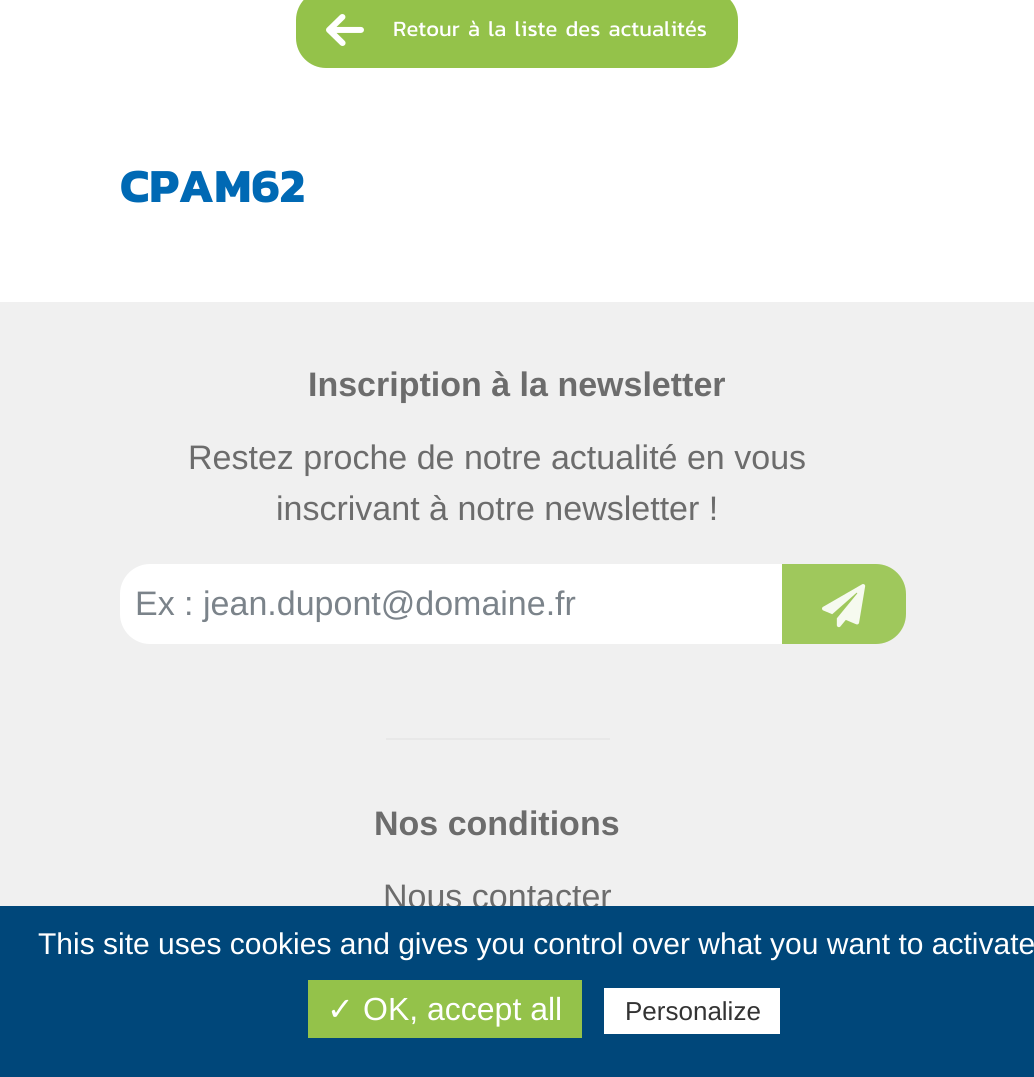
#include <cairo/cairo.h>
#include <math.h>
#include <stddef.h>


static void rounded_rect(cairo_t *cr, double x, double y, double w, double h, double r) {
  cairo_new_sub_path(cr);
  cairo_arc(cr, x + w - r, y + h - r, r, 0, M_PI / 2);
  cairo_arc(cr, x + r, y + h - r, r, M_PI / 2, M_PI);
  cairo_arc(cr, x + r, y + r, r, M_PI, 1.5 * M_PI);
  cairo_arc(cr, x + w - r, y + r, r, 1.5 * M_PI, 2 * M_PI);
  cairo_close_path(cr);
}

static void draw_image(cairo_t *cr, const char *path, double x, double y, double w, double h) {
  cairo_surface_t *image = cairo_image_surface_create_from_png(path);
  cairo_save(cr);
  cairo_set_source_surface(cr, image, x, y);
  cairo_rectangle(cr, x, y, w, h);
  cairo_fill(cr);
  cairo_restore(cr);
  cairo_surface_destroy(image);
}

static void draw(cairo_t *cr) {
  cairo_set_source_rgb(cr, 1, 1, 1);
  cairo_paint(cr);
  cairo_set_source_rgb(cr, 148 / 255.0, 194 / 255.0, 74 / 255.0);
  rounded_rect(cr, 296, -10, 442, 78, 30);
  cairo_fill(cr);
  draw_image(cr, "images/1.png", 326, 14, 38, 32);
  cairo_set_source_rgb(cr, 240 / 255.0, 240 / 255.0, 240 / 255.0);
  cairo_rectangle(cr, 0, 302, 1034, 604);
  cairo_fill(cr);
  cairo_set_source_rgb(cr, 1, 1, 1);
  cairo_new_path(cr);
  cairo_move_to(cr, 150, 564);
  cairo_line_to(cr, 782, 564);
  cairo_line_to(cr, 782, 644);
  cairo_line_to(cr, 150, 644);
  cairo_curve_to(cr, 133.5, 644, 120, 630.5, 120, 614);
  cairo_line_to(cr, 120, 594);
  cairo_curve_to(cr, 120, 577.5, 133.5, 564, 150, 564);
  cairo_close_path(cr);
  cairo_fill(cr);
  cairo_set_source_rgb(cr, 159 / 255.0, 200 / 255.0, 92 / 255.0);
  cairo_new_path(cr);
  cairo_move_to(cr, 782, 564);
  cairo_line_to(cr, 876, 564);
  cairo_curve_to(cr, 892.5, 564, 906, 577.5, 906, 594);
  cairo_line_to(cr, 906, 614);
  cairo_curve_to(cr, 906, 630.5, 892.5, 644, 876, 644);
  cairo_line_to(cr, 782, 644);
  cairo_close_path(cr);
  cairo_fill(cr);
  draw_image(cr, "images/2.png", 822, 584, 44, 44);
  cairo_set_source_rgb(cr, 232 / 255.0, 232 / 255.0, 232 / 255.0);
  cairo_rectangle(cr, 386, 738, 224, 2);
  cairo_fill(cr);
  cairo_select_font_face(cr, "Kanit", CAIRO_FONT_SLANT_NORMAL, CAIRO_FONT_WEIGHT_NORMAL);
  cairo_set_font_size(cr, 22);
  cairo_set_source_rgb(cr, 1, 1, 1);
  cairo_move_to(cr, 393, 36);
  cairo_show_text(cr, "Retour à la liste des actualités");
  cairo_select_font_face(cr, "Kanit", CAIRO_FONT_SLANT_NORMAL, CAIRO_FONT_WEIGHT_BOLD);
  cairo_set_font_size(cr, 48);
  cairo_set_source_rgb(cr, 0, 105 / 255.0, 180 / 255.0);
  cairo_move_to(cr, 120, 202);
  cairo_show_text(cr, "CPAM62");
  cairo_select_font_face(cr, "Liberation Sans", CAIRO_FONT_SLANT_NORMAL, CAIRO_FONT_WEIGHT_BOLD);
  cairo_set_font_size(cr, 34);
  cairo_set_source_rgb(cr, 108 / 255.0, 108 / 255.0, 108 / 255.0);
  cairo_move_to(cr, 308, 396);
  cairo_show_text(cr, "Inscription à la newsletter");
  cairo_select_font_face(cr, "Liberation Sans", CAIRO_FONT_SLANT_NORMAL, CAIRO_FONT_WEIGHT_NORMAL);
  cairo_move_to(cr, 188, 469);
  cairo_show_text(cr, "Restez proche de notre actualité en vous");
  cairo_move_to(cr, 276, 520);
  cairo_show_text(cr, "inscrivant à notre newsletter !");
  cairo_set_source_rgb(cr, 123 / 255.0, 131 / 255.0, 138 / 255.0);
  cairo_move_to(cr, 135, 615);
  cairo_show_text(cr, "Ex : jean.dupont@domaine.fr");
  cairo_select_font_face(cr, "Liberation Sans", CAIRO_FONT_SLANT_NORMAL, CAIRO_FONT_WEIGHT_BOLD);
  cairo_set_source_rgb(cr, 108 / 255.0, 108 / 255.0, 108 / 255.0);
  cairo_move_to(cr, 374, 835);
  cairo_show_text(cr, "Nos conditions");
  cairo_select_font_face(cr, "Liberation Sans", CAIRO_FONT_SLANT_NORMAL, CAIRO_FONT_WEIGHT_NORMAL);
  cairo_move_to(cr, 383, 908);
  cairo_show_text(cr, "Nous contacter");
  cairo_set_source_rgb(cr, 0, 71 / 255.0, 122 / 255.0);
  cairo_rectangle(cr, 0, 906, 1034, 171);
  cairo_fill(cr);
  cairo_set_font_size(cr, 30);
  cairo_set_source_rgb(cr, 1, 1, 1);
  cairo_move_to(cr, 38, 954);
  cairo_show_text(cr, "This site uses cookies and gives you control over what you want to activate");
  cairo_set_source_rgb(cr, 148 / 255.0, 194 / 255.0, 74 / 255.0);
  cairo_rectangle(cr, 308, 980, 274, 58);
  cairo_fill(cr);
  cairo_select_font_face(cr, "DejaVu Sans", CAIRO_FONT_SLANT_NORMAL, CAIRO_FONT_WEIGHT_NORMAL);
  cairo_set_font_size(cr, 32);
  cairo_set_source_rgb(cr, 1, 1, 1);
  cairo_move_to(cr, 327, 1020);
  cairo_show_text(cr, "✓");
  cairo_select_font_face(cr, "Liberation Sans", CAIRO_FONT_SLANT_NORMAL, CAIRO_FONT_WEIGHT_NORMAL);
  cairo_move_to(cr, 363, 1020);
  cairo_show_text(cr, "OK, accept all");
  cairo_rectangle(cr, 604, 988, 176, 46);
  cairo_fill(cr);
  cairo_set_font_size(cr, 26);
  cairo_set_source_rgb(cr, 51 / 255.0, 51 / 255.0, 51 / 255.0);
  cairo_move_to(cr, 625, 1020);
  cairo_show_text(cr, "Personalize");
}

int main(void) {
  cairo_surface_t *surface = cairo_image_surface_create(CAIRO_FORMAT_RGB24, 1034, 1077);
  cairo_t *cr = cairo_create(surface);
  cairo_font_options_t *options = cairo_font_options_create();
  cairo_font_options_set_hint_metrics(options, CAIRO_HINT_METRICS_OFF);
  cairo_font_options_set_hint_style(options, CAIRO_HINT_STYLE_NONE);
  cairo_set_font_options(cr, options);
  cairo_set_miter_limit(cr, 4);
  draw(cr);
  cairo_surface_write_to_png(surface, "out.png");
  cairo_font_options_destroy(options);
  cairo_destroy(cr);
  cairo_surface_destroy(surface);
  return 0;
}
